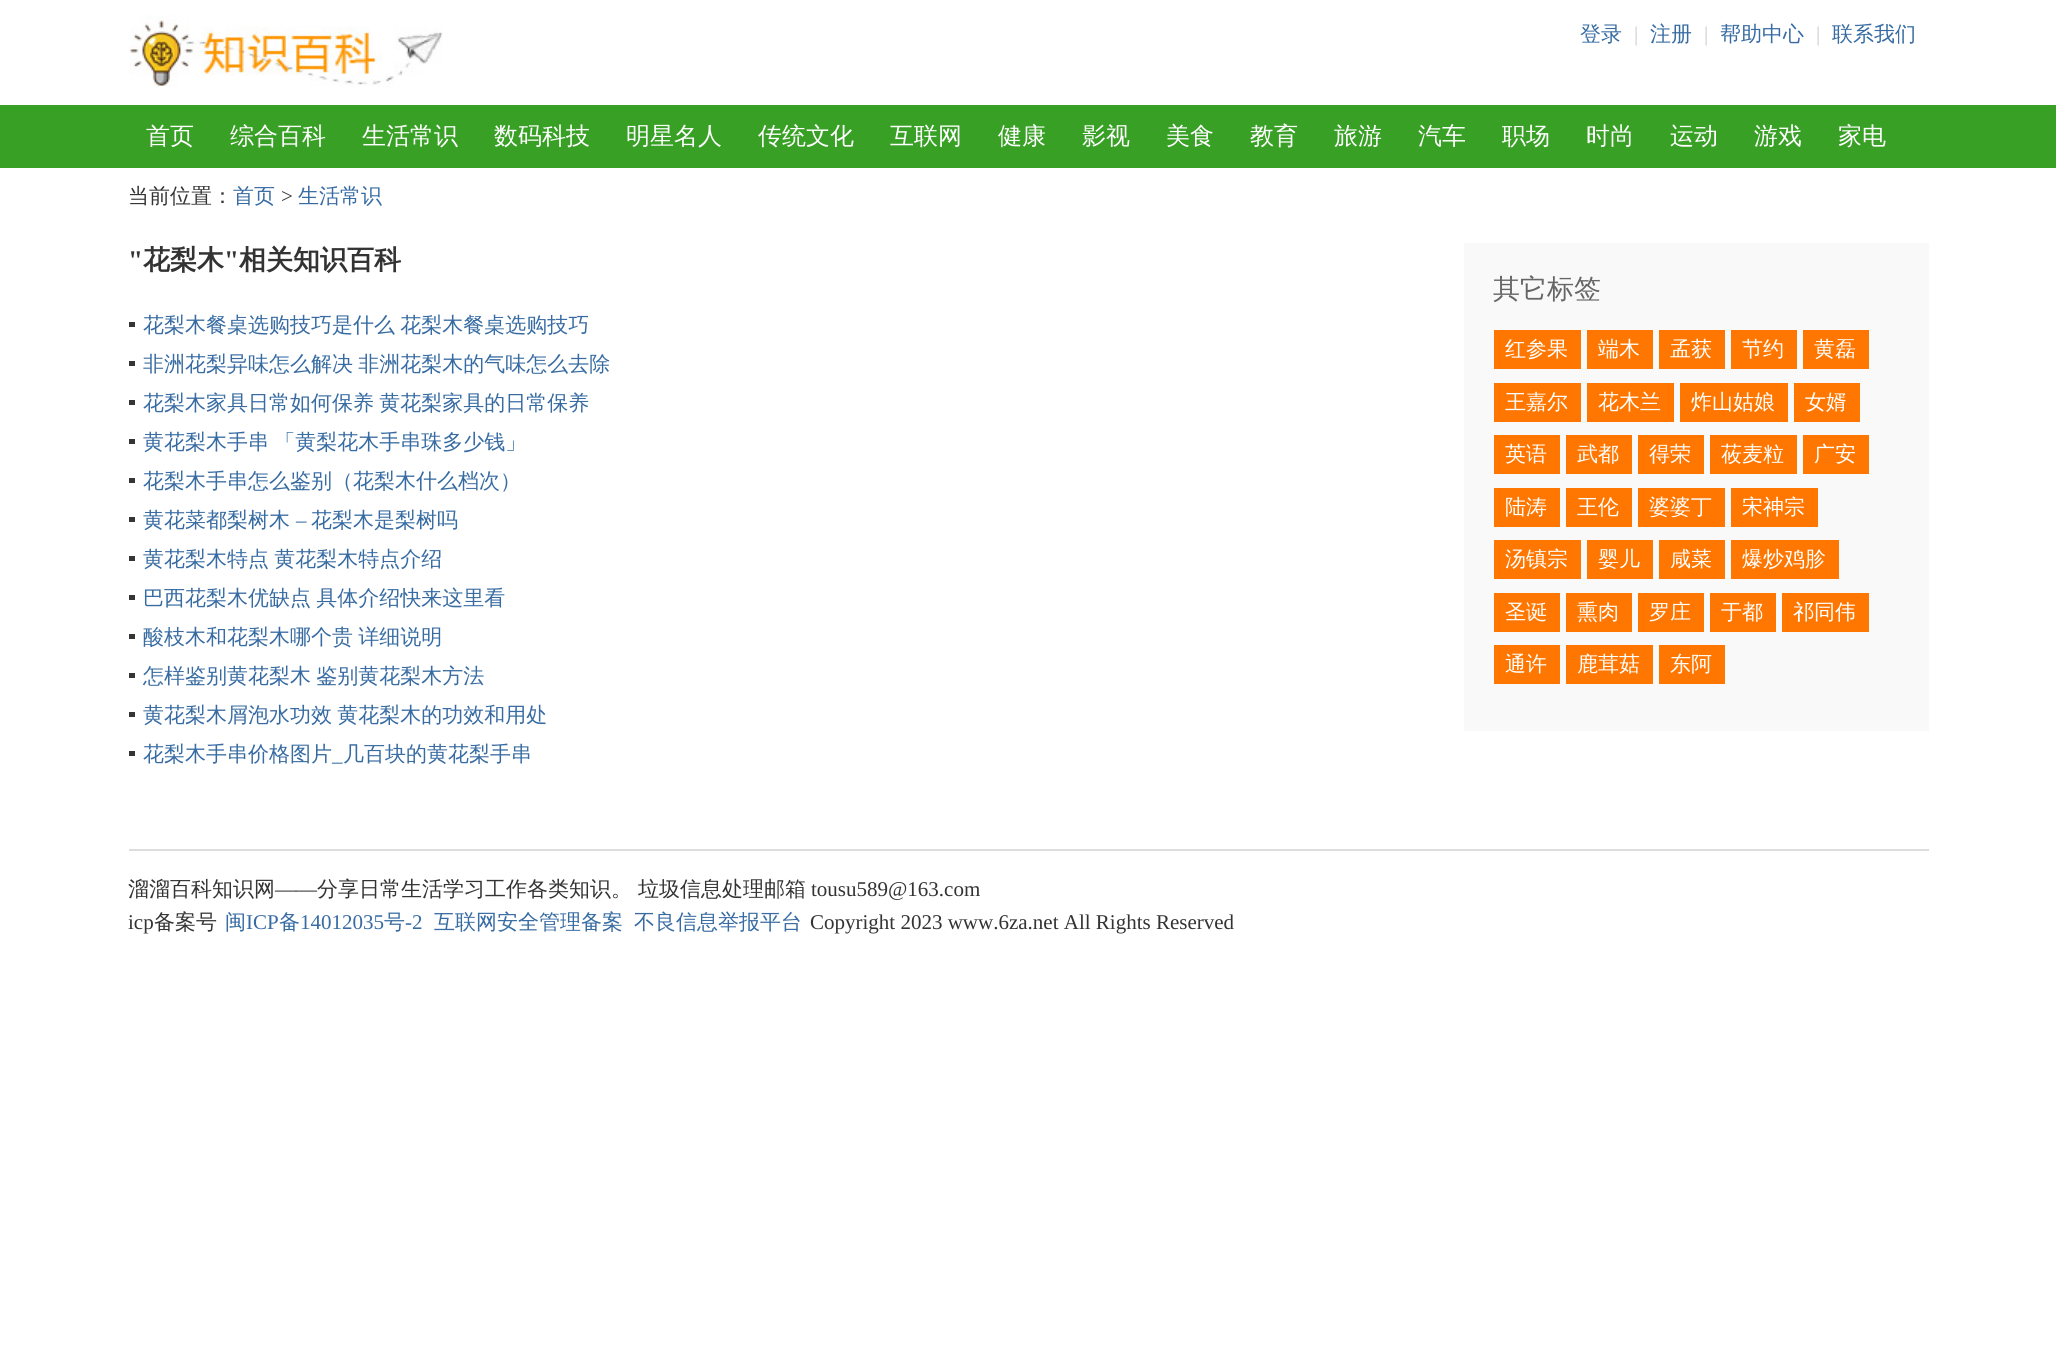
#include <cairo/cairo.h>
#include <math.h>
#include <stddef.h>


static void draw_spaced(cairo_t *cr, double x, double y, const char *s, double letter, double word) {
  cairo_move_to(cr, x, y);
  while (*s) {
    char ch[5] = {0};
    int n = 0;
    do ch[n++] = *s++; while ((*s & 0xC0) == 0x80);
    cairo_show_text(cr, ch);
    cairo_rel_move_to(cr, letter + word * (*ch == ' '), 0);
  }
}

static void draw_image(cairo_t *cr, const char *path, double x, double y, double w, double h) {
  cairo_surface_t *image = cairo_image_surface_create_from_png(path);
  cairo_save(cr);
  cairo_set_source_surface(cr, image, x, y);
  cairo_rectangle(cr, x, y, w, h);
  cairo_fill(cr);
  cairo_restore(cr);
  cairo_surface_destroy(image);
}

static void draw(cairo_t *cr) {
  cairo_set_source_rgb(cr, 1, 1, 1);
  cairo_paint(cr);
  draw_image(cr, "images/1.png", 129, 15, 314, 72);
  cairo_set_source_rgb(cr, 56 / 255.0, 160 / 255.0, 37 / 255.0);
  cairo_rectangle(cr, 0, 105, 2056, 63);
  cairo_fill(cr);
  cairo_set_source_rgb(cr, 53 / 255.0, 53 / 255.0, 53 / 255.0);
  cairo_rectangle(cr, 129, 322, 6, 5);
  cairo_fill(cr);
  cairo_rectangle(cr, 129, 361, 6, 5);
  cairo_fill(cr);
  cairo_rectangle(cr, 129, 400, 6, 5);
  cairo_fill(cr);
  cairo_rectangle(cr, 129, 439, 6, 5);
  cairo_fill(cr);
  cairo_rectangle(cr, 129, 478, 6, 5);
  cairo_fill(cr);
  cairo_rectangle(cr, 129, 517, 6, 5);
  cairo_fill(cr);
  cairo_rectangle(cr, 129, 556, 6, 5);
  cairo_fill(cr);
  cairo_rectangle(cr, 129, 595, 6, 5);
  cairo_fill(cr);
  cairo_rectangle(cr, 129, 634, 6, 5);
  cairo_fill(cr);
  cairo_rectangle(cr, 129, 673, 6, 5);
  cairo_fill(cr);
  cairo_rectangle(cr, 129, 712, 6, 5);
  cairo_fill(cr);
  cairo_rectangle(cr, 129, 751, 6, 5);
  cairo_fill(cr);
  cairo_set_source_rgb(cr, 249 / 255.0, 249 / 255.0, 249 / 255.0);
  cairo_rectangle(cr, 1464, 243, 465, 488);
  cairo_fill(cr);
  cairo_set_source_rgb(cr, 1, 119 / 255.0, 0);
  cairo_rectangle(cr, 1494, 330, 87, 39);
  cairo_fill(cr);
  cairo_rectangle(cr, 1587, 330, 66, 39);
  cairo_fill(cr);
  cairo_rectangle(cr, 1659, 330, 66, 39);
  cairo_fill(cr);
  cairo_rectangle(cr, 1731, 330, 66, 39);
  cairo_fill(cr);
  cairo_rectangle(cr, 1803, 330, 66, 39);
  cairo_fill(cr);
  cairo_rectangle(cr, 1494, 383, 87, 39);
  cairo_fill(cr);
  cairo_rectangle(cr, 1587, 383, 87, 39);
  cairo_fill(cr);
  cairo_rectangle(cr, 1680, 383, 108, 39);
  cairo_fill(cr);
  cairo_rectangle(cr, 1794, 383, 66, 39);
  cairo_fill(cr);
  cairo_rectangle(cr, 1494, 435, 66, 39);
  cairo_fill(cr);
  cairo_rectangle(cr, 1566, 435, 66, 39);
  cairo_fill(cr);
  cairo_rectangle(cr, 1638, 435, 66, 39);
  cairo_fill(cr);
  cairo_rectangle(cr, 1710, 435, 87, 39);
  cairo_fill(cr);
  cairo_rectangle(cr, 1803, 435, 66, 39);
  cairo_fill(cr);
  cairo_rectangle(cr, 1494, 488, 66, 39);
  cairo_fill(cr);
  cairo_rectangle(cr, 1566, 488, 66, 39);
  cairo_fill(cr);
  cairo_rectangle(cr, 1638, 488, 87, 39);
  cairo_fill(cr);
  cairo_rectangle(cr, 1731, 488, 87, 39);
  cairo_fill(cr);
  cairo_rectangle(cr, 1494, 540, 87, 39);
  cairo_fill(cr);
  cairo_rectangle(cr, 1587, 540, 66, 39);
  cairo_fill(cr);
  cairo_rectangle(cr, 1659, 540, 66, 39);
  cairo_fill(cr);
  cairo_rectangle(cr, 1731, 540, 108, 39);
  cairo_fill(cr);
  cairo_rectangle(cr, 1494, 593, 66, 39);
  cairo_fill(cr);
  cairo_rectangle(cr, 1566, 593, 66, 39);
  cairo_fill(cr);
  cairo_rectangle(cr, 1638, 593, 66, 39);
  cairo_fill(cr);
  cairo_rectangle(cr, 1710, 593, 66, 39);
  cairo_fill(cr);
  cairo_rectangle(cr, 1782, 593, 87, 39);
  cairo_fill(cr);
  cairo_rectangle(cr, 1494, 645, 66, 39);
  cairo_fill(cr);
  cairo_rectangle(cr, 1566, 645, 87, 39);
  cairo_fill(cr);
  cairo_rectangle(cr, 1659, 645, 66, 39);
  cairo_fill(cr);
  cairo_set_source_rgb(cr, 221 / 255.0, 221 / 255.0, 221 / 255.0);
  cairo_rectangle(cr, 129, 849, 1800, 2);
  cairo_fill(cr);
  cairo_select_font_face(cr, "WenQuanYi Zen Hei Medium", CAIRO_FONT_SLANT_NORMAL, CAIRO_FONT_WEIGHT_NORMAL);
  cairo_set_font_size(cr, 21);
  cairo_set_source_rgb(cr, 55 / 255.0, 107 / 255.0, 162 / 255.0);
  cairo_move_to(cr, 1580, 41);
  cairo_show_text(cr, "登录");
  cairo_select_font_face(cr, "Liberation Serif", CAIRO_FONT_SLANT_NORMAL, CAIRO_FONT_WEIGHT_NORMAL);
  cairo_set_source_rgb(cr, 204 / 255.0, 204 / 255.0, 204 / 255.0);
  cairo_move_to(cr, 1634, 41);
  cairo_show_text(cr, "|");
  cairo_select_font_face(cr, "WenQuanYi Zen Hei Medium", CAIRO_FONT_SLANT_NORMAL, CAIRO_FONT_WEIGHT_NORMAL);
  cairo_set_source_rgb(cr, 55 / 255.0, 107 / 255.0, 162 / 255.0);
  cairo_move_to(cr, 1650, 41);
  cairo_show_text(cr, "注册");
  cairo_select_font_face(cr, "Liberation Serif", CAIRO_FONT_SLANT_NORMAL, CAIRO_FONT_WEIGHT_NORMAL);
  cairo_set_source_rgb(cr, 204 / 255.0, 204 / 255.0, 204 / 255.0);
  cairo_move_to(cr, 1704, 41);
  cairo_show_text(cr, "|");
  cairo_select_font_face(cr, "WenQuanYi Zen Hei Medium", CAIRO_FONT_SLANT_NORMAL, CAIRO_FONT_WEIGHT_NORMAL);
  cairo_set_source_rgb(cr, 55 / 255.0, 107 / 255.0, 162 / 255.0);
  cairo_move_to(cr, 1720, 41);
  cairo_show_text(cr, "帮助中心");
  cairo_select_font_face(cr, "Liberation Serif", CAIRO_FONT_SLANT_NORMAL, CAIRO_FONT_WEIGHT_NORMAL);
  cairo_set_source_rgb(cr, 204 / 255.0, 204 / 255.0, 204 / 255.0);
  cairo_move_to(cr, 1816, 41);
  cairo_show_text(cr, "|");
  cairo_select_font_face(cr, "WenQuanYi Zen Hei Medium", CAIRO_FONT_SLANT_NORMAL, CAIRO_FONT_WEIGHT_NORMAL);
  cairo_set_source_rgb(cr, 55 / 255.0, 107 / 255.0, 162 / 255.0);
  cairo_move_to(cr, 1832, 41);
  cairo_show_text(cr, "联系我们");
  cairo_set_font_size(cr, 24);
  cairo_set_source_rgb(cr, 1, 1, 1);
  cairo_move_to(cr, 146, 144);
  cairo_show_text(cr, "首页");
  cairo_move_to(cr, 230, 144);
  cairo_show_text(cr, "综合百科");
  cairo_move_to(cr, 362, 144);
  cairo_show_text(cr, "生活常识");
  cairo_move_to(cr, 494, 144);
  cairo_show_text(cr, "数码科技");
  cairo_move_to(cr, 626, 144);
  cairo_show_text(cr, "明星名人");
  cairo_move_to(cr, 758, 144);
  cairo_show_text(cr, "传统文化");
  cairo_move_to(cr, 890, 144);
  cairo_show_text(cr, "互联网");
  cairo_move_to(cr, 998, 144);
  cairo_show_text(cr, "健康");
  cairo_move_to(cr, 1082, 144);
  cairo_show_text(cr, "影视");
  cairo_move_to(cr, 1166, 144);
  cairo_show_text(cr, "美食");
  cairo_move_to(cr, 1250, 144);
  cairo_show_text(cr, "教育");
  cairo_move_to(cr, 1334, 144);
  cairo_show_text(cr, "旅游");
  cairo_move_to(cr, 1418, 144);
  cairo_show_text(cr, "汽车");
  cairo_move_to(cr, 1502, 144);
  cairo_show_text(cr, "职场");
  cairo_move_to(cr, 1586, 144);
  cairo_show_text(cr, "时尚");
  cairo_move_to(cr, 1670, 144);
  cairo_show_text(cr, "运动");
  cairo_move_to(cr, 1754, 144);
  cairo_show_text(cr, "游戏");
  cairo_move_to(cr, 1838, 144);
  cairo_show_text(cr, "家电");
  cairo_set_font_size(cr, 21);
  cairo_set_source_rgb(cr, 51 / 255.0, 51 / 255.0, 51 / 255.0);
  cairo_move_to(cr, 128, 203);
  cairo_show_text(cr, "当前位置：");
  cairo_set_source_rgb(cr, 55 / 255.0, 107 / 255.0, 162 / 255.0);
  cairo_move_to(cr, 233, 203);
  cairo_show_text(cr, "首页");
  cairo_select_font_face(cr, "Liberation Serif", CAIRO_FONT_SLANT_NORMAL, CAIRO_FONT_WEIGHT_NORMAL);
  cairo_set_source_rgb(cr, 51 / 255.0, 51 / 255.0, 51 / 255.0);
  cairo_move_to(cr, 281, 203);
  cairo_show_text(cr, ">");
  cairo_select_font_face(cr, "WenQuanYi Zen Hei Medium", CAIRO_FONT_SLANT_NORMAL, CAIRO_FONT_WEIGHT_NORMAL);
  cairo_set_source_rgb(cr, 55 / 255.0, 107 / 255.0, 162 / 255.0);
  cairo_move_to(cr, 298, 203);
  cairo_show_text(cr, "生活常识");
  cairo_select_font_face(cr, "Liberation Serif", CAIRO_FONT_SLANT_NORMAL, CAIRO_FONT_WEIGHT_BOLD);
  cairo_set_font_size(cr, 27);
  cairo_set_source_rgb(cr, 51 / 255.0, 51 / 255.0, 51 / 255.0);
  cairo_move_to(cr, 128, 269);
  cairo_show_text(cr, "\"");
  cairo_select_font_face(cr, "WenQuanYi Zen Hei", CAIRO_FONT_SLANT_NORMAL, CAIRO_FONT_WEIGHT_BOLD);
  cairo_move_to(cr, 143, 269);
  cairo_show_text(cr, "花梨木");
  cairo_select_font_face(cr, "Liberation Serif", CAIRO_FONT_SLANT_NORMAL, CAIRO_FONT_WEIGHT_BOLD);
  cairo_move_to(cr, 224, 269);
  cairo_show_text(cr, "\"");
  cairo_select_font_face(cr, "WenQuanYi Zen Hei", CAIRO_FONT_SLANT_NORMAL, CAIRO_FONT_WEIGHT_BOLD);
  cairo_move_to(cr, 239, 269);
  cairo_show_text(cr, "相关知识百科");
  cairo_select_font_face(cr, "WenQuanYi Zen Hei Medium", CAIRO_FONT_SLANT_NORMAL, CAIRO_FONT_WEIGHT_NORMAL);
  cairo_set_font_size(cr, 21);
  cairo_set_source_rgb(cr, 55 / 255.0, 107 / 255.0, 162 / 255.0);
  draw_spaced(cr, 143, 332, "花梨木餐桌选购技巧是什么 花梨木餐桌选购技巧", 0, -1);
  draw_spaced(cr, 143, 371, "非洲花梨异味怎么解决 非洲花梨木的气味怎么去除", 0, -1);
  draw_spaced(cr, 143, 410, "花梨木家具日常如何保养 黄花梨家具的日常保养", 0, -1);
  draw_spaced(cr, 143, 449, "黄花梨木手串 「黄梨花木手串珠多少钱」", 0, -1);
  cairo_move_to(cr, 143, 488);
  cairo_show_text(cr, "花梨木手串怎么鉴别（花梨木什么档次）");
  cairo_move_to(cr, 143, 527);
  cairo_show_text(cr, "黄花菜都梨树木");
  cairo_select_font_face(cr, "Liberation Serif", CAIRO_FONT_SLANT_NORMAL, CAIRO_FONT_WEIGHT_NORMAL);
  cairo_move_to(cr, 296, 527);
  cairo_show_text(cr, "–");
  cairo_select_font_face(cr, "WenQuanYi Zen Hei Medium", CAIRO_FONT_SLANT_NORMAL, CAIRO_FONT_WEIGHT_NORMAL);
  cairo_move_to(cr, 311, 527);
  cairo_show_text(cr, "花梨木是梨树吗");
  draw_spaced(cr, 143, 566, "黄花梨木特点 黄花梨木特点介绍", 0, -1);
  draw_spaced(cr, 143, 605, "巴西花梨木优缺点 具体介绍快来这里看", 0, -1);
  draw_spaced(cr, 143, 644, "酸枝木和花梨木哪个贵 详细说明", 0, -1);
  draw_spaced(cr, 143, 683, "怎样鉴别黄花梨木 鉴别黄花梨木方法", 0, -1);
  draw_spaced(cr, 143, 722, "黄花梨木屑泡水功效 黄花梨木的功效和用处", 0, -1);
  cairo_move_to(cr, 143, 761);
  cairo_show_text(cr, "花梨木手串价格图片");
  cairo_select_font_face(cr, "Liberation Serif", CAIRO_FONT_SLANT_NORMAL, CAIRO_FONT_WEIGHT_NORMAL);
  cairo_move_to(cr, 332, 761);
  cairo_show_text(cr, "_");
  cairo_select_font_face(cr, "WenQuanYi Zen Hei Medium", CAIRO_FONT_SLANT_NORMAL, CAIRO_FONT_WEIGHT_NORMAL);
  cairo_move_to(cr, 343, 761);
  cairo_show_text(cr, "几百块的黄花梨手串");
  cairo_set_font_size(cr, 27);
  cairo_set_source_rgb(cr, 102 / 255.0, 102 / 255.0, 102 / 255.0);
  cairo_move_to(cr, 1493, 298);
  cairo_show_text(cr, "其它标签");
  cairo_set_font_size(cr, 21);
  cairo_set_source_rgb(cr, 1, 1, 1);
  cairo_move_to(cr, 1505, 356);
  cairo_show_text(cr, "红参果");
  cairo_move_to(cr, 1598, 356);
  cairo_show_text(cr, "端木");
  cairo_move_to(cr, 1670, 356);
  cairo_show_text(cr, "孟获");
  cairo_move_to(cr, 1742, 356);
  cairo_show_text(cr, "节约");
  cairo_move_to(cr, 1814, 356);
  cairo_show_text(cr, "黄磊");
  cairo_move_to(cr, 1505, 409);
  cairo_show_text(cr, "王嘉尔");
  cairo_move_to(cr, 1598, 409);
  cairo_show_text(cr, "花木兰");
  cairo_move_to(cr, 1691, 409);
  cairo_show_text(cr, "炸山姑娘");
  cairo_move_to(cr, 1805, 409);
  cairo_show_text(cr, "女婿");
  cairo_move_to(cr, 1505, 461);
  cairo_show_text(cr, "英语");
  cairo_move_to(cr, 1577, 461);
  cairo_show_text(cr, "武都");
  cairo_move_to(cr, 1649, 461);
  cairo_show_text(cr, "得荣");
  cairo_move_to(cr, 1721, 461);
  cairo_show_text(cr, "莜麦粒");
  cairo_move_to(cr, 1814, 461);
  cairo_show_text(cr, "广安");
  cairo_move_to(cr, 1505, 514);
  cairo_show_text(cr, "陆涛");
  cairo_move_to(cr, 1577, 514);
  cairo_show_text(cr, "王伦");
  cairo_move_to(cr, 1649, 514);
  cairo_show_text(cr, "婆婆丁");
  cairo_move_to(cr, 1742, 514);
  cairo_show_text(cr, "宋神宗");
  cairo_move_to(cr, 1505, 566);
  cairo_show_text(cr, "汤镇宗");
  cairo_move_to(cr, 1598, 566);
  cairo_show_text(cr, "婴儿");
  cairo_move_to(cr, 1670, 566);
  cairo_show_text(cr, "咸菜");
  cairo_move_to(cr, 1742, 566);
  cairo_show_text(cr, "爆炒鸡胗");
  cairo_move_to(cr, 1505, 619);
  cairo_show_text(cr, "圣诞");
  cairo_move_to(cr, 1577, 619);
  cairo_show_text(cr, "熏肉");
  cairo_move_to(cr, 1649, 619);
  cairo_show_text(cr, "罗庄");
  cairo_move_to(cr, 1721, 619);
  cairo_show_text(cr, "于都");
  cairo_move_to(cr, 1793, 619);
  cairo_show_text(cr, "祁同伟");
  cairo_move_to(cr, 1505, 671);
  cairo_show_text(cr, "通许");
  cairo_move_to(cr, 1577, 671);
  cairo_show_text(cr, "鹿茸菇");
  cairo_move_to(cr, 1670, 671);
  cairo_show_text(cr, "东阿");
  cairo_set_source_rgb(cr, 51 / 255.0, 51 / 255.0, 51 / 255.0);
  cairo_move_to(cr, 128, 896);
  cairo_show_text(cr, "溜溜百科知识网");
  cairo_select_font_face(cr, "Liberation Serif", CAIRO_FONT_SLANT_NORMAL, CAIRO_FONT_WEIGHT_NORMAL);
  cairo_move_to(cr, 275, 896);
  cairo_show_text(cr, "——");
  cairo_select_font_face(cr, "WenQuanYi Zen Hei Medium", CAIRO_FONT_SLANT_NORMAL, CAIRO_FONT_WEIGHT_NORMAL);
  cairo_move_to(cr, 317, 896);
  cairo_show_text(cr, "分享日常生活学习工作各类知识。");
  cairo_move_to(cr, 638, 896);
  cairo_show_text(cr, "垃圾信息处理邮箱");
  cairo_select_font_face(cr, "Liberation Serif", CAIRO_FONT_SLANT_NORMAL, CAIRO_FONT_WEIGHT_NORMAL);
  cairo_move_to(cr, 811, 896);
  cairo_show_text(cr, "tousu589@163.com");
  cairo_move_to(cr, 128, 929);
  cairo_show_text(cr, "icp");
  cairo_select_font_face(cr, "WenQuanYi Zen Hei Medium", CAIRO_FONT_SLANT_NORMAL, CAIRO_FONT_WEIGHT_NORMAL);
  cairo_move_to(cr, 154, 929);
  cairo_show_text(cr, "备案号");
  cairo_set_source_rgb(cr, 55 / 255.0, 107 / 255.0, 162 / 255.0);
  cairo_move_to(cr, 225, 929);
  cairo_show_text(cr, "闽");
  cairo_select_font_face(cr, "Liberation Serif", CAIRO_FONT_SLANT_NORMAL, CAIRO_FONT_WEIGHT_NORMAL);
  cairo_move_to(cr, 246, 929);
  cairo_show_text(cr, "ICP");
  cairo_select_font_face(cr, "WenQuanYi Zen Hei Medium", CAIRO_FONT_SLANT_NORMAL, CAIRO_FONT_WEIGHT_NORMAL);
  cairo_move_to(cr, 279, 929);
  cairo_show_text(cr, "备");
  cairo_select_font_face(cr, "Liberation Serif", CAIRO_FONT_SLANT_NORMAL, CAIRO_FONT_WEIGHT_NORMAL);
  cairo_move_to(cr, 300, 929);
  cairo_show_text(cr, "14012035");
  cairo_select_font_face(cr, "WenQuanYi Zen Hei Medium", CAIRO_FONT_SLANT_NORMAL, CAIRO_FONT_WEIGHT_NORMAL);
  cairo_move_to(cr, 384, 929);
  cairo_show_text(cr, "号");
  cairo_select_font_face(cr, "Liberation Serif", CAIRO_FONT_SLANT_NORMAL, CAIRO_FONT_WEIGHT_NORMAL);
  cairo_move_to(cr, 405, 929);
  cairo_show_text(cr, "-2");
  cairo_select_font_face(cr, "WenQuanYi Zen Hei Medium", CAIRO_FONT_SLANT_NORMAL, CAIRO_FONT_WEIGHT_NORMAL);
  cairo_move_to(cr, 434, 929);
  cairo_show_text(cr, "互联网安全管理备案");
  cairo_move_to(cr, 634, 929);
  cairo_show_text(cr, "不良信息举报平台");
  cairo_select_font_face(cr, "Liberation Serif", CAIRO_FONT_SLANT_NORMAL, CAIRO_FONT_WEIGHT_NORMAL);
  cairo_set_source_rgb(cr, 51 / 255.0, 51 / 255.0, 51 / 255.0);
  cairo_move_to(cr, 810, 929);
  cairo_show_text(cr, "Copyright 2023 www.6za.net All Rights Reserved");
}

int main(void) {
  cairo_surface_t *surface = cairo_image_surface_create(CAIRO_FORMAT_RGB24, 2056, 1365);
  cairo_t *cr = cairo_create(surface);
  cairo_font_options_t *options = cairo_font_options_create();
  cairo_font_options_set_hint_metrics(options, CAIRO_HINT_METRICS_OFF);
  cairo_font_options_set_hint_style(options, CAIRO_HINT_STYLE_NONE);
  cairo_set_font_options(cr, options);
  cairo_set_miter_limit(cr, 4);
  draw(cr);
  cairo_surface_write_to_png(surface, "out.png");
  cairo_font_options_destroy(options);
  cairo_destroy(cr);
  cairo_surface_destroy(surface);
  return 0;
}
